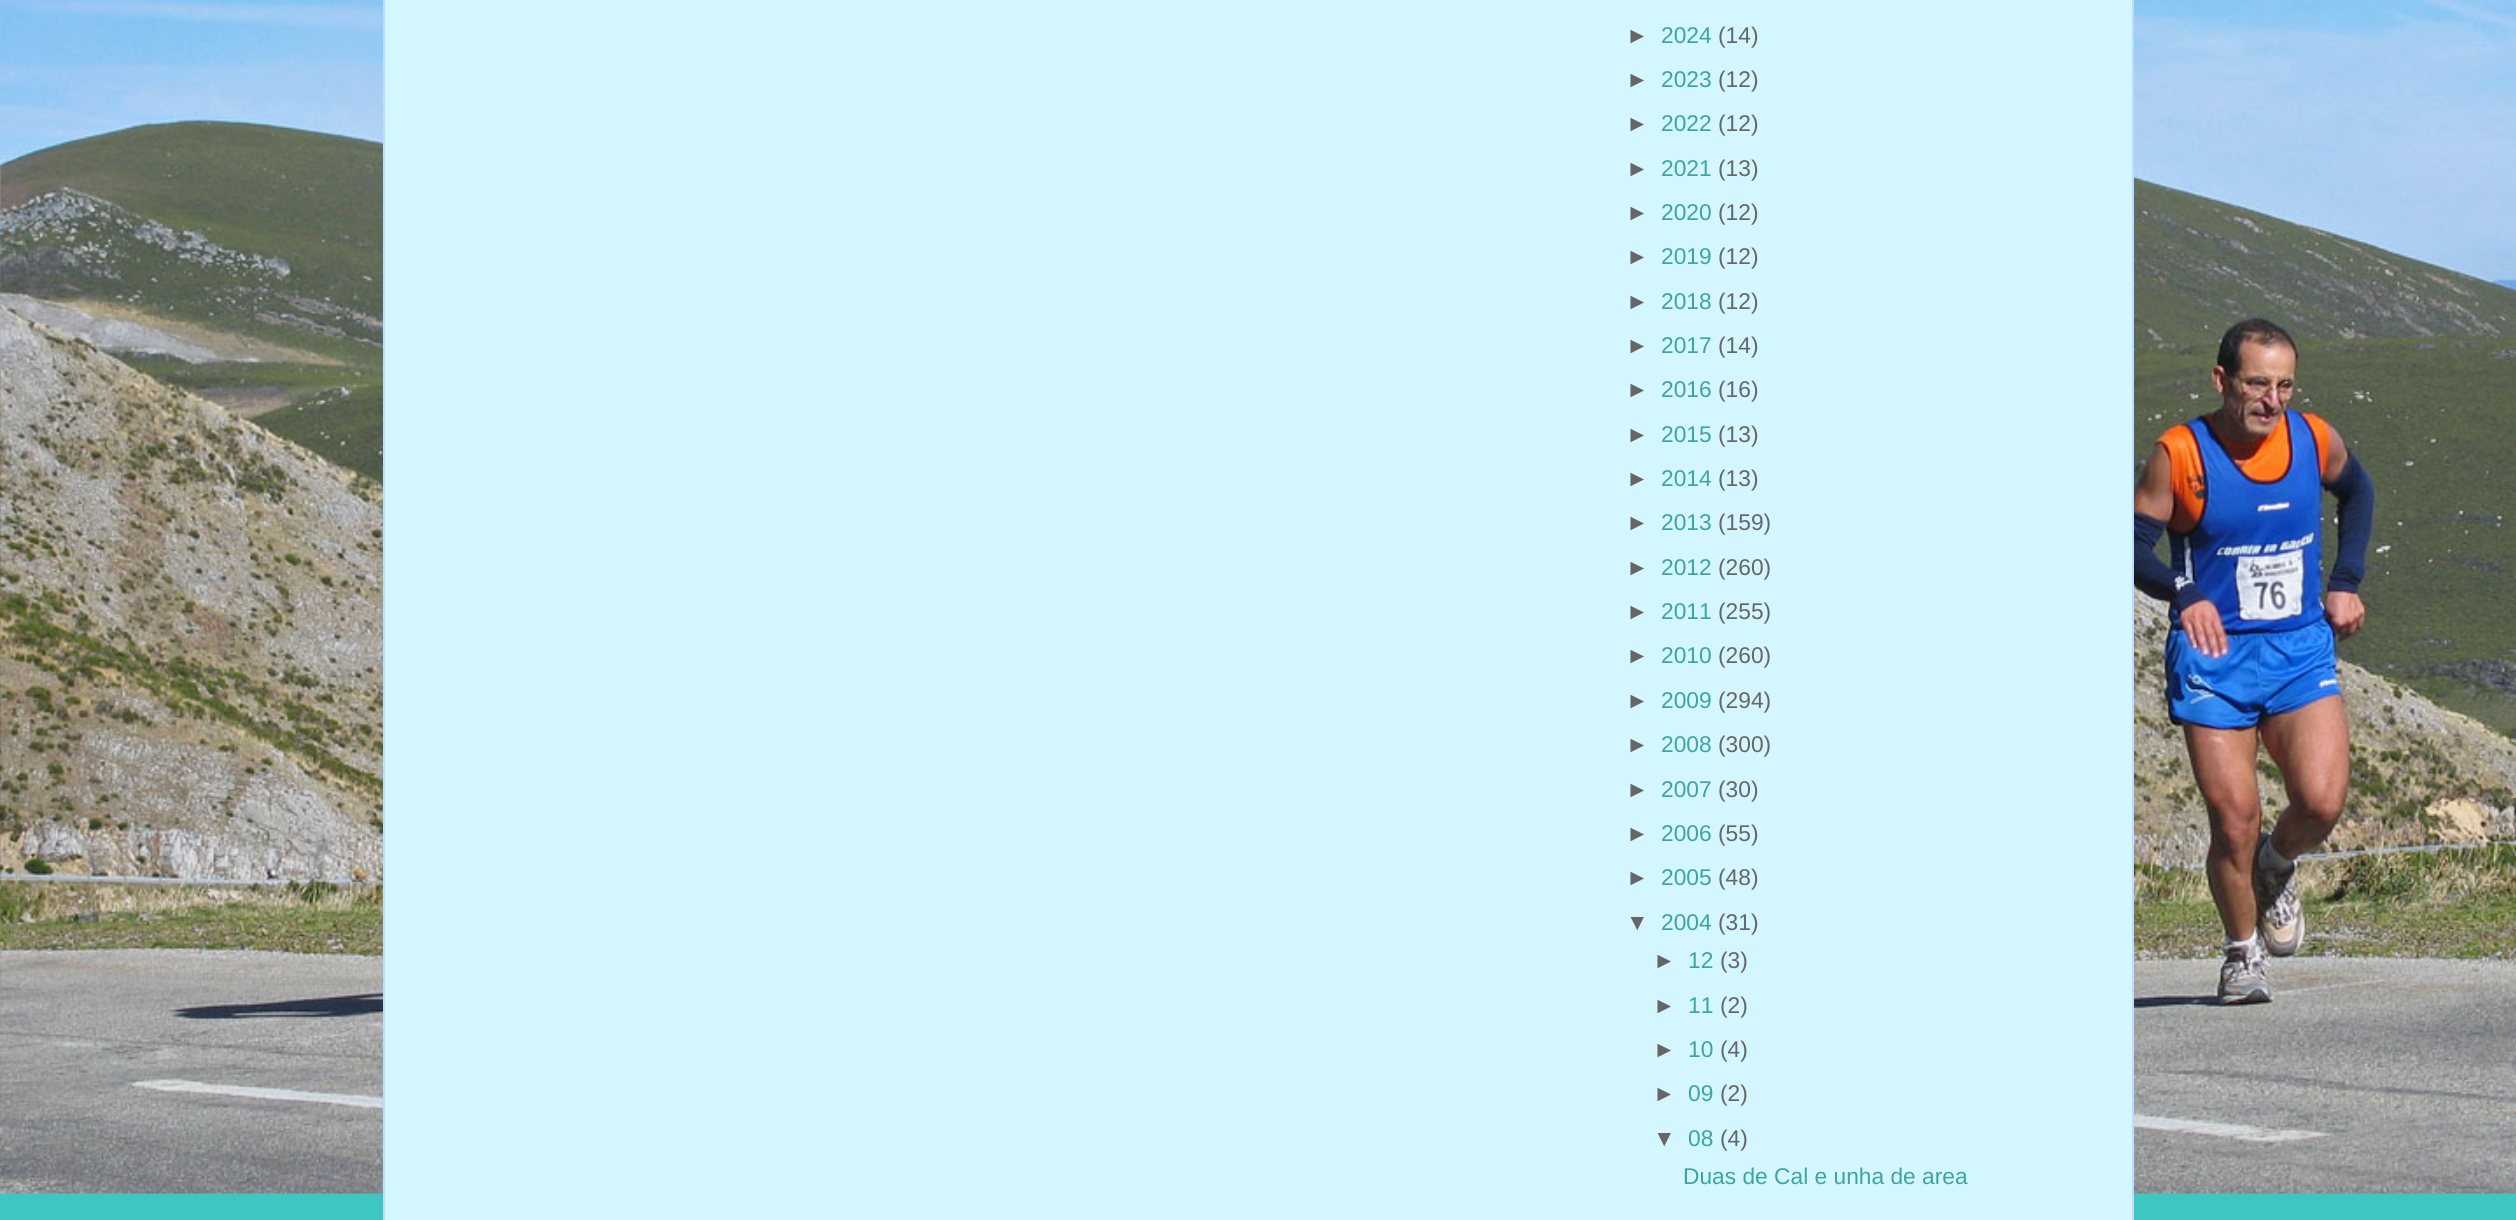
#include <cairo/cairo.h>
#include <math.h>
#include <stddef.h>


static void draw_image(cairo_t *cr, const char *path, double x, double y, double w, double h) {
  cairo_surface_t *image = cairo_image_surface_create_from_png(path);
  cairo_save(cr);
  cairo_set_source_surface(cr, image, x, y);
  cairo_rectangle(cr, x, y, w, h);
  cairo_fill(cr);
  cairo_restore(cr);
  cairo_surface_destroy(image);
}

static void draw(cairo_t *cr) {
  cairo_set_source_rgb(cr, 61 / 255.0, 198 / 255.0, 194 / 255.0);
  cairo_paint(cr);
  draw_image(cr, "images/1.png", 0, 0, 2516, 1194);
  cairo_set_source_rgb(cr, 211 / 255.0, 246 / 255.0, 1);
  cairo_rectangle(cr, 385, 0, 1747, 1220);
  cairo_fill(cr);
  cairo_set_source_rgb(cr, 187 / 255.0, 221 / 255.0, 1);
  cairo_rectangle(cr, 2132, 0, 2, 1220);
  cairo_fill(cr);
  cairo_rectangle(cr, 383, 0, 2, 1220);
  cairo_fill(cr);
  cairo_select_font_face(cr, "Liberation Sans", CAIRO_FONT_SLANT_NORMAL, CAIRO_FONT_WEIGHT_NORMAL);
  cairo_set_font_size(cr, 22.75);
  cairo_set_source_rgb(cr, 102 / 255.0, 102 / 255.0, 102 / 255.0);
  cairo_move_to(cr, 1626, 43);
  cairo_show_text(cr, "►");
  cairo_set_source_rgb(cr, 61 / 255.0, 165 / 255.0, 161 / 255.0);
  cairo_move_to(cr, 1661, 43);
  cairo_show_text(cr, "2024");
  cairo_set_source_rgb(cr, 102 / 255.0, 102 / 255.0, 102 / 255.0);
  cairo_move_to(cr, 1718, 43);
  cairo_show_text(cr, "(14)");
  cairo_move_to(cr, 1626, 87);
  cairo_show_text(cr, "►");
  cairo_set_source_rgb(cr, 61 / 255.0, 165 / 255.0, 161 / 255.0);
  cairo_move_to(cr, 1661, 87);
  cairo_show_text(cr, "2023");
  cairo_set_source_rgb(cr, 102 / 255.0, 102 / 255.0, 102 / 255.0);
  cairo_move_to(cr, 1718, 87);
  cairo_show_text(cr, "(12)");
  cairo_move_to(cr, 1626, 131);
  cairo_show_text(cr, "►");
  cairo_set_source_rgb(cr, 61 / 255.0, 165 / 255.0, 161 / 255.0);
  cairo_move_to(cr, 1661, 131);
  cairo_show_text(cr, "2022");
  cairo_set_source_rgb(cr, 102 / 255.0, 102 / 255.0, 102 / 255.0);
  cairo_move_to(cr, 1718, 131);
  cairo_show_text(cr, "(12)");
  cairo_move_to(cr, 1626, 176);
  cairo_show_text(cr, "►");
  cairo_set_source_rgb(cr, 61 / 255.0, 165 / 255.0, 161 / 255.0);
  cairo_move_to(cr, 1661, 176);
  cairo_show_text(cr, "2021");
  cairo_set_source_rgb(cr, 102 / 255.0, 102 / 255.0, 102 / 255.0);
  cairo_move_to(cr, 1718, 176);
  cairo_show_text(cr, "(13)");
  cairo_move_to(cr, 1626, 220);
  cairo_show_text(cr, "►");
  cairo_set_source_rgb(cr, 61 / 255.0, 165 / 255.0, 161 / 255.0);
  cairo_move_to(cr, 1661, 220);
  cairo_show_text(cr, "2020");
  cairo_set_source_rgb(cr, 102 / 255.0, 102 / 255.0, 102 / 255.0);
  cairo_move_to(cr, 1718, 220);
  cairo_show_text(cr, "(12)");
  cairo_move_to(cr, 1626, 264);
  cairo_show_text(cr, "►");
  cairo_set_source_rgb(cr, 61 / 255.0, 165 / 255.0, 161 / 255.0);
  cairo_move_to(cr, 1661, 264);
  cairo_show_text(cr, "2019");
  cairo_set_source_rgb(cr, 102 / 255.0, 102 / 255.0, 102 / 255.0);
  cairo_move_to(cr, 1718, 264);
  cairo_show_text(cr, "(12)");
  cairo_move_to(cr, 1626, 309);
  cairo_show_text(cr, "►");
  cairo_set_source_rgb(cr, 61 / 255.0, 165 / 255.0, 161 / 255.0);
  cairo_move_to(cr, 1661, 309);
  cairo_show_text(cr, "2018");
  cairo_set_source_rgb(cr, 102 / 255.0, 102 / 255.0, 102 / 255.0);
  cairo_move_to(cr, 1718, 309);
  cairo_show_text(cr, "(12)");
  cairo_move_to(cr, 1626, 353);
  cairo_show_text(cr, "►");
  cairo_set_source_rgb(cr, 61 / 255.0, 165 / 255.0, 161 / 255.0);
  cairo_move_to(cr, 1661, 353);
  cairo_show_text(cr, "2017");
  cairo_set_source_rgb(cr, 102 / 255.0, 102 / 255.0, 102 / 255.0);
  cairo_move_to(cr, 1718, 353);
  cairo_show_text(cr, "(14)");
  cairo_move_to(cr, 1626, 397);
  cairo_show_text(cr, "►");
  cairo_set_source_rgb(cr, 61 / 255.0, 165 / 255.0, 161 / 255.0);
  cairo_move_to(cr, 1661, 397);
  cairo_show_text(cr, "2016");
  cairo_set_source_rgb(cr, 102 / 255.0, 102 / 255.0, 102 / 255.0);
  cairo_move_to(cr, 1718, 397);
  cairo_show_text(cr, "(16)");
  cairo_move_to(cr, 1626, 442);
  cairo_show_text(cr, "►");
  cairo_set_source_rgb(cr, 61 / 255.0, 165 / 255.0, 161 / 255.0);
  cairo_move_to(cr, 1661, 442);
  cairo_show_text(cr, "2015");
  cairo_set_source_rgb(cr, 102 / 255.0, 102 / 255.0, 102 / 255.0);
  cairo_move_to(cr, 1718, 442);
  cairo_show_text(cr, "(13)");
  cairo_move_to(cr, 1626, 486);
  cairo_show_text(cr, "►");
  cairo_set_source_rgb(cr, 61 / 255.0, 165 / 255.0, 161 / 255.0);
  cairo_move_to(cr, 1661, 486);
  cairo_show_text(cr, "2014");
  cairo_set_source_rgb(cr, 102 / 255.0, 102 / 255.0, 102 / 255.0);
  cairo_move_to(cr, 1718, 486);
  cairo_show_text(cr, "(13)");
  cairo_move_to(cr, 1626, 530);
  cairo_show_text(cr, "►");
  cairo_set_source_rgb(cr, 61 / 255.0, 165 / 255.0, 161 / 255.0);
  cairo_move_to(cr, 1661, 530);
  cairo_show_text(cr, "2013");
  cairo_set_source_rgb(cr, 102 / 255.0, 102 / 255.0, 102 / 255.0);
  cairo_move_to(cr, 1718, 530);
  cairo_show_text(cr, "(159)");
  cairo_move_to(cr, 1626, 575);
  cairo_show_text(cr, "►");
  cairo_set_source_rgb(cr, 61 / 255.0, 165 / 255.0, 161 / 255.0);
  cairo_move_to(cr, 1661, 575);
  cairo_show_text(cr, "2012");
  cairo_set_source_rgb(cr, 102 / 255.0, 102 / 255.0, 102 / 255.0);
  cairo_move_to(cr, 1718, 575);
  cairo_show_text(cr, "(260)");
  cairo_move_to(cr, 1626, 619);
  cairo_show_text(cr, "►");
  cairo_set_source_rgb(cr, 61 / 255.0, 165 / 255.0, 161 / 255.0);
  cairo_move_to(cr, 1661, 619);
  cairo_show_text(cr, "2011");
  cairo_set_source_rgb(cr, 102 / 255.0, 102 / 255.0, 102 / 255.0);
  cairo_move_to(cr, 1718, 619);
  cairo_show_text(cr, "(255)");
  cairo_move_to(cr, 1626, 663);
  cairo_show_text(cr, "►");
  cairo_set_source_rgb(cr, 61 / 255.0, 165 / 255.0, 161 / 255.0);
  cairo_move_to(cr, 1661, 663);
  cairo_show_text(cr, "2010");
  cairo_set_source_rgb(cr, 102 / 255.0, 102 / 255.0, 102 / 255.0);
  cairo_move_to(cr, 1718, 663);
  cairo_show_text(cr, "(260)");
  cairo_move_to(cr, 1626, 708);
  cairo_show_text(cr, "►");
  cairo_set_source_rgb(cr, 61 / 255.0, 165 / 255.0, 161 / 255.0);
  cairo_move_to(cr, 1661, 708);
  cairo_show_text(cr, "2009");
  cairo_set_source_rgb(cr, 102 / 255.0, 102 / 255.0, 102 / 255.0);
  cairo_move_to(cr, 1718, 708);
  cairo_show_text(cr, "(294)");
  cairo_move_to(cr, 1626, 752);
  cairo_show_text(cr, "►");
  cairo_set_source_rgb(cr, 61 / 255.0, 165 / 255.0, 161 / 255.0);
  cairo_move_to(cr, 1661, 752);
  cairo_show_text(cr, "2008");
  cairo_set_source_rgb(cr, 102 / 255.0, 102 / 255.0, 102 / 255.0);
  cairo_move_to(cr, 1718, 752);
  cairo_show_text(cr, "(300)");
  cairo_move_to(cr, 1626, 797);
  cairo_show_text(cr, "►");
  cairo_set_source_rgb(cr, 61 / 255.0, 165 / 255.0, 161 / 255.0);
  cairo_move_to(cr, 1661, 797);
  cairo_show_text(cr, "2007");
  cairo_set_source_rgb(cr, 102 / 255.0, 102 / 255.0, 102 / 255.0);
  cairo_move_to(cr, 1718, 797);
  cairo_show_text(cr, "(30)");
  cairo_move_to(cr, 1626, 841);
  cairo_show_text(cr, "►");
  cairo_set_source_rgb(cr, 61 / 255.0, 165 / 255.0, 161 / 255.0);
  cairo_move_to(cr, 1661, 841);
  cairo_show_text(cr, "2006");
  cairo_set_source_rgb(cr, 102 / 255.0, 102 / 255.0, 102 / 255.0);
  cairo_move_to(cr, 1718, 841);
  cairo_show_text(cr, "(55)");
  cairo_move_to(cr, 1626, 885);
  cairo_show_text(cr, "►");
  cairo_set_source_rgb(cr, 61 / 255.0, 165 / 255.0, 161 / 255.0);
  cairo_move_to(cr, 1661, 885);
  cairo_show_text(cr, "2005");
  cairo_set_source_rgb(cr, 102 / 255.0, 102 / 255.0, 102 / 255.0);
  cairo_move_to(cr, 1718, 885);
  cairo_show_text(cr, "(48)");
  cairo_move_to(cr, 1626, 930);
  cairo_show_text(cr, "▼");
  cairo_set_source_rgb(cr, 61 / 255.0, 165 / 255.0, 161 / 255.0);
  cairo_move_to(cr, 1661, 930);
  cairo_show_text(cr, "2004");
  cairo_set_source_rgb(cr, 102 / 255.0, 102 / 255.0, 102 / 255.0);
  cairo_move_to(cr, 1718, 930);
  cairo_show_text(cr, "(31)");
  cairo_move_to(cr, 1653, 968);
  cairo_show_text(cr, "►");
  cairo_set_source_rgb(cr, 61 / 255.0, 165 / 255.0, 161 / 255.0);
  cairo_move_to(cr, 1688, 968);
  cairo_show_text(cr, "12");
  cairo_set_source_rgb(cr, 102 / 255.0, 102 / 255.0, 102 / 255.0);
  cairo_move_to(cr, 1720, 968);
  cairo_show_text(cr, "(3)");
  cairo_move_to(cr, 1653, 1013);
  cairo_show_text(cr, "►");
  cairo_set_source_rgb(cr, 61 / 255.0, 165 / 255.0, 161 / 255.0);
  cairo_move_to(cr, 1688, 1013);
  cairo_show_text(cr, "11");
  cairo_set_source_rgb(cr, 102 / 255.0, 102 / 255.0, 102 / 255.0);
  cairo_move_to(cr, 1720, 1013);
  cairo_show_text(cr, "(2)");
  cairo_move_to(cr, 1653, 1057);
  cairo_show_text(cr, "►");
  cairo_set_source_rgb(cr, 61 / 255.0, 165 / 255.0, 161 / 255.0);
  cairo_move_to(cr, 1688, 1057);
  cairo_show_text(cr, "10");
  cairo_set_source_rgb(cr, 102 / 255.0, 102 / 255.0, 102 / 255.0);
  cairo_move_to(cr, 1720, 1057);
  cairo_show_text(cr, "(4)");
  cairo_move_to(cr, 1653, 1101);
  cairo_show_text(cr, "►");
  cairo_set_source_rgb(cr, 61 / 255.0, 165 / 255.0, 161 / 255.0);
  cairo_move_to(cr, 1688, 1101);
  cairo_show_text(cr, "09");
  cairo_set_source_rgb(cr, 102 / 255.0, 102 / 255.0, 102 / 255.0);
  cairo_move_to(cr, 1720, 1101);
  cairo_show_text(cr, "(2)");
  cairo_move_to(cr, 1653, 1146);
  cairo_show_text(cr, "▼");
  cairo_set_source_rgb(cr, 61 / 255.0, 165 / 255.0, 161 / 255.0);
  cairo_move_to(cr, 1688, 1146);
  cairo_show_text(cr, "08");
  cairo_set_source_rgb(cr, 102 / 255.0, 102 / 255.0, 102 / 255.0);
  cairo_move_to(cr, 1720, 1146);
  cairo_show_text(cr, "(4)");
  cairo_set_source_rgb(cr, 61 / 255.0, 165 / 255.0, 161 / 255.0);
  cairo_move_to(cr, 1683, 1184);
  cairo_show_text(cr, "Duas de Cal e unha de area");
}

int main(void) {
  cairo_surface_t *surface = cairo_image_surface_create(CAIRO_FORMAT_RGB24, 2516, 1220);
  cairo_t *cr = cairo_create(surface);
  cairo_font_options_t *options = cairo_font_options_create();
  cairo_font_options_set_hint_metrics(options, CAIRO_HINT_METRICS_OFF);
  cairo_font_options_set_hint_style(options, CAIRO_HINT_STYLE_NONE);
  cairo_set_font_options(cr, options);
  cairo_set_miter_limit(cr, 4);
  draw(cr);
  cairo_surface_write_to_png(surface, "out.png");
  cairo_font_options_destroy(options);
  cairo_destroy(cr);
  cairo_surface_destroy(surface);
  return 0;
}
